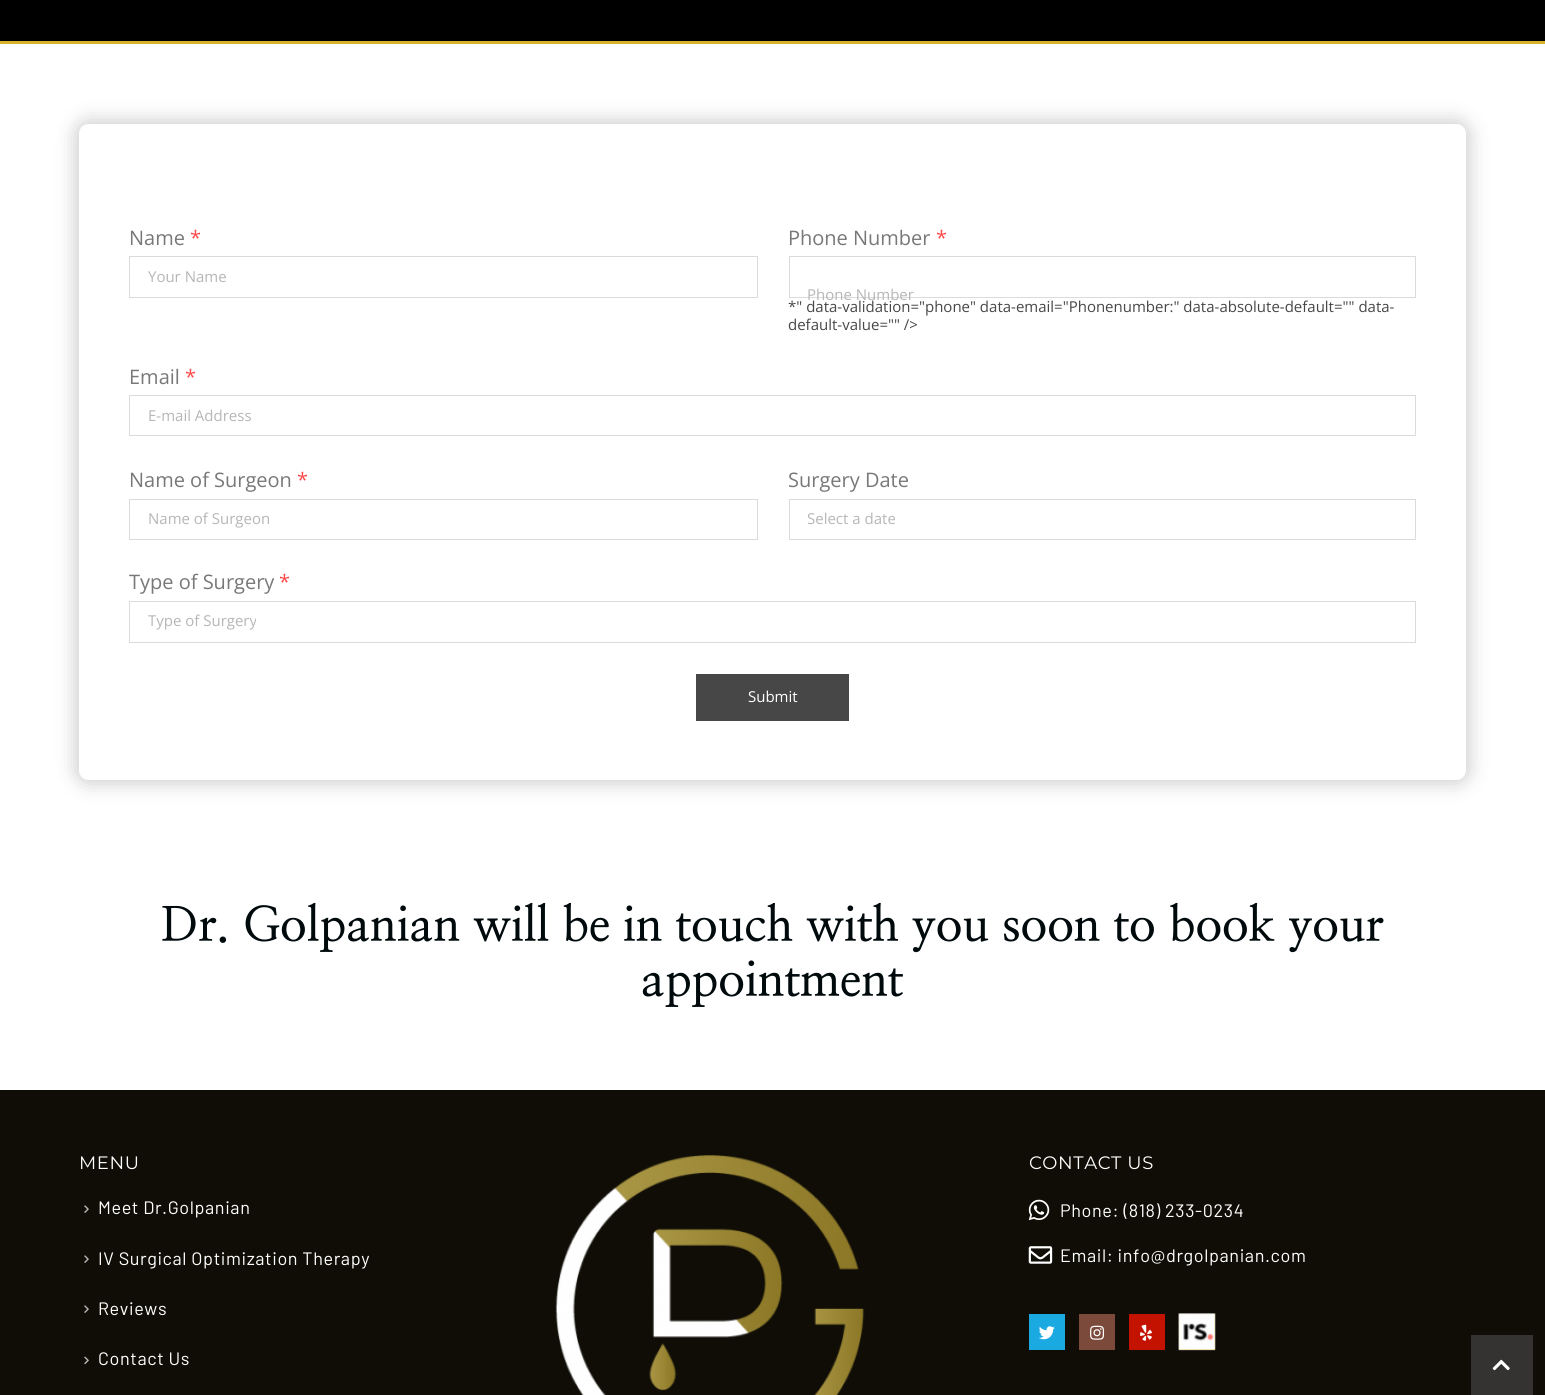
#include <cairo/cairo.h>
#include <math.h>
#include <stddef.h>


static void draw_spaced(cairo_t *cr, double x, double y, const char *s, double letter, double word) {
  cairo_move_to(cr, x, y);
  while (*s) {
    char ch[5] = {0};
    int n = 0;
    do ch[n++] = *s++; while ((*s & 0xC0) == 0x80);
    cairo_show_text(cr, ch);
    cairo_rel_move_to(cr, letter + word * (*ch == ' '), 0);
  }
}

static void rounded_rect(cairo_t *cr, double x, double y, double w, double h, double r) {
  cairo_new_sub_path(cr);
  cairo_arc(cr, x + w - r, y + h - r, r, 0, M_PI / 2);
  cairo_arc(cr, x + r, y + h - r, r, M_PI / 2, M_PI);
  cairo_arc(cr, x + r, y + r, r, M_PI, 1.5 * M_PI);
  cairo_arc(cr, x + w - r, y + r, r, 1.5 * M_PI, 2 * M_PI);
  cairo_close_path(cr);
}

static void draw_shadow(cairo_t *cr, double x, double y, double w, double h, double r, double blur, double alpha) {
  cairo_push_group_with_content(cr, CAIRO_CONTENT_ALPHA);
  cairo_set_operator(cr, CAIRO_OPERATOR_SOURCE);
  for (int i = 15; i >= -15 && fmin(w, h) + blur * i / 3 > 0; i -= 2) {
    double e = blur * i / 6;
    cairo_set_source_rgba(cr, 0, 0, 0, alpha * erfc((i - 1) / 8.5) / 2);
    rounded_rect(cr, x - e, y - e, w + 2 * e, h + 2 * e, fmax(0, fmin(r + e + blur * .6, fmin(w, h) / 2 + e)));
    cairo_fill(cr);
  }
  cairo_pattern_t *soft = cairo_pop_group(cr);
  cairo_mask(cr, soft);
  cairo_pattern_destroy(soft);
}

static void draw_image(cairo_t *cr, const char *path, double x, double y, double w, double h) {
  cairo_surface_t *image = cairo_image_surface_create_from_png(path);
  cairo_save(cr);
  cairo_set_source_surface(cr, image, x, y);
  cairo_rectangle(cr, x, y, w, h);
  cairo_fill(cr);
  cairo_restore(cr);
  cairo_surface_destroy(image);
}

static void draw(cairo_t *cr) {
  cairo_set_source_rgb(cr, 1, 1, 1);
  cairo_paint(cr);
  cairo_set_source_rgb(cr, 0, 0, 0);
  cairo_rectangle(cr, 0, 0, 1545, 41);
  cairo_fill(cr);
  cairo_set_source_rgb(cr, 214 / 255.0, 177 / 255.0, 44 / 255.0);
  cairo_rectangle(cr, 0, 41, 1545, 3);
  cairo_fill(cr);
  cairo_save(cr);
  cairo_set_fill_rule(cr, CAIRO_FILL_RULE_EVEN_ODD);
  cairo_new_path(cr);
  cairo_move_to(cr, 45, 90);
  cairo_line_to(cr, 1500, 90);
  cairo_line_to(cr, 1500, 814);
  cairo_line_to(cr, 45, 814);
  cairo_close_path(cr);
  cairo_move_to(cr, 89, 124);
  cairo_line_to(cr, 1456, 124);
  cairo_curve_to(cr, 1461.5, 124, 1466, 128.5, 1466, 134);
  cairo_line_to(cr, 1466, 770);
  cairo_curve_to(cr, 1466, 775.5, 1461.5, 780, 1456, 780);
  cairo_line_to(cr, 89, 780);
  cairo_curve_to(cr, 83.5, 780, 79, 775.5, 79, 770);
  cairo_line_to(cr, 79, 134);
  cairo_curve_to(cr, 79, 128.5, 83.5, 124, 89, 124);
  cairo_close_path(cr);
  cairo_clip(cr);
  cairo_set_source_rgb(cr, 0, 0, 0);
  draw_shadow(cr, 75, 120, 1395, 664, 14, 9.5, 0.19);
  cairo_restore(cr);
  cairo_rectangle(cr, 129.5, 256.5, 628, 41);
  cairo_set_source_rgb(cr, 219 / 255.0, 219 / 255.0, 219 / 255.0);
  cairo_set_line_width(cr, 1);
  cairo_stroke(cr);
  cairo_rectangle(cr, 789.5, 256.5, 626, 41);
  cairo_stroke(cr);
  cairo_rectangle(cr, 129.5, 395.5, 1286, 40);
  cairo_stroke(cr);
  cairo_rectangle(cr, 129.5, 499.5, 628, 40);
  cairo_stroke(cr);
  cairo_rectangle(cr, 789.5, 499.5, 626, 40);
  cairo_stroke(cr);
  cairo_rectangle(cr, 129.5, 601.5, 1286, 41);
  cairo_stroke(cr);
  cairo_set_source_rgb(cr, 71 / 255.0, 71 / 255.0, 71 / 255.0);
  cairo_rectangle(cr, 696, 674, 153, 47);
  cairo_fill(cr);
  cairo_set_source_rgb(cr, 15 / 255.0, 13 / 255.0, 6 / 255.0);
  cairo_rectangle(cr, 0, 1090, 1545, 305);
  cairo_fill(cr);
  draw_image(cr, "images/1.png", 84, 1205, 5, 8);
  draw_image(cr, "images/1.png", 84, 1255, 5, 8);
  draw_image(cr, "images/1.png", 84, 1305, 5, 8);
  draw_image(cr, "images/2.png", 84, 1356, 5, 9);
  draw_image(cr, "images/3.png", 555, 1155, 310, 240);
  draw_image(cr, "images/4.png", 1028, 1199, 22, 22);
  draw_image(cr, "images/5.png", 1028, 1246, 25, 18);
  cairo_set_source_rgb(cr, 26 / 255.0, 169 / 255.0, 225 / 255.0);
  cairo_rectangle(cr, 1029, 1314, 36, 36);
  cairo_fill(cr);
  draw_image(cr, "images/6.png", 1039, 1326, 16, 14);
  cairo_set_source_rgb(cr, 124 / 255.0, 74 / 255.0, 58 / 255.0);
  cairo_rectangle(cr, 1079, 1314, 36, 36);
  cairo_fill(cr);
  draw_image(cr, "images/7.png", 1090, 1325, 15, 15);
  cairo_set_source_rgb(cr, 196 / 255.0, 18 / 255.0, 0);
  cairo_rectangle(cr, 1129, 1314, 36, 36);
  cairo_fill(cr);
  draw_image(cr, "images/8.png", 1140, 1324, 12, 17);
  cairo_set_source_rgb(cr, 214 / 255.0, 177 / 255.0, 44 / 255.0);
  cairo_rectangle(cr, 1179, 1314, 36, 36);
  cairo_fill(cr);
  draw_image(cr, "images/9.png", 1178, 1313, 38, 38);
  cairo_set_source_rgb(cr, 52 / 255.0, 51 / 255.0, 50 / 255.0);
  cairo_rectangle(cr, 1471, 1335, 62, 60);
  cairo_fill(cr);
  draw_image(cr, "images/10.png", 1492, 1359, 18, 12);
  cairo_select_font_face(cr, "Open Sans", CAIRO_FONT_SLANT_NORMAL, CAIRO_FONT_WEIGHT_NORMAL);
  cairo_set_font_size(cr, 20);
  cairo_set_source_rgb(cr, 120 / 255.0, 120 / 255.0, 120 / 255.0);
  cairo_move_to(cr, 129, 245);
  cairo_show_text(cr, "Name");
  cairo_set_source_rgb(cr, 1, 71 / 255.0, 71 / 255.0);
  cairo_move_to(cr, 190, 245);
  cairo_show_text(cr, "*");
  cairo_set_font_size(cr, 15);
  cairo_set_source_rgb(cr, 182 / 255.0, 182 / 255.0, 182 / 255.0);
  cairo_move_to(cr, 148, 282);
  cairo_show_text(cr, "Your Name");
  cairo_set_font_size(cr, 20);
  cairo_set_source_rgb(cr, 120 / 255.0, 120 / 255.0, 120 / 255.0);
  cairo_move_to(cr, 788, 245);
  cairo_show_text(cr, "Phone Number");
  cairo_set_source_rgb(cr, 1, 71 / 255.0, 71 / 255.0);
  cairo_move_to(cr, 936, 245);
  cairo_show_text(cr, "*");
  cairo_set_font_size(cr, 15);
  cairo_set_source_rgb(cr, 182 / 255.0, 182 / 255.0, 182 / 255.0);
  cairo_move_to(cr, 807, 300);
  cairo_show_text(cr, "Phone Number");
  cairo_set_source_rgb(cr, 71 / 255.0, 71 / 255.0, 71 / 255.0);
  cairo_move_to(cr, 788, 312);
  cairo_show_text(cr, "*\" data-validation=\"phone\" data-email=\"Phonenumber:\" data-absolute-default=\"\" data-");
  cairo_move_to(cr, 788, 330);
  cairo_show_text(cr, "default-value=\"\" />");
  cairo_set_font_size(cr, 20);
  cairo_set_source_rgb(cr, 120 / 255.0, 120 / 255.0, 120 / 255.0);
  cairo_move_to(cr, 129, 384);
  cairo_show_text(cr, "Email");
  cairo_set_source_rgb(cr, 1, 71 / 255.0, 71 / 255.0);
  cairo_move_to(cr, 185, 384);
  cairo_show_text(cr, "*");
  cairo_set_font_size(cr, 15);
  cairo_set_source_rgb(cr, 182 / 255.0, 182 / 255.0, 182 / 255.0);
  cairo_move_to(cr, 148, 421);
  cairo_show_text(cr, "E-mail Address");
  cairo_set_font_size(cr, 20);
  cairo_set_source_rgb(cr, 120 / 255.0, 120 / 255.0, 120 / 255.0);
  cairo_move_to(cr, 129, 487);
  cairo_show_text(cr, "Name of Surgeon");
  cairo_set_source_rgb(cr, 1, 71 / 255.0, 71 / 255.0);
  cairo_move_to(cr, 297, 487);
  cairo_show_text(cr, "*");
  cairo_set_font_size(cr, 15);
  cairo_set_source_rgb(cr, 182 / 255.0, 182 / 255.0, 182 / 255.0);
  cairo_move_to(cr, 148, 524);
  cairo_show_text(cr, "Name of Surgeon");
  cairo_set_font_size(cr, 20);
  cairo_set_source_rgb(cr, 120 / 255.0, 120 / 255.0, 120 / 255.0);
  cairo_move_to(cr, 788, 487);
  cairo_show_text(cr, "Surgery Date");
  cairo_save(cr);
  cairo_rectangle(cr, 808, 510, 88, 18);
  cairo_clip(cr);
  cairo_set_font_size(cr, 15);
  cairo_set_source_rgb(cr, 182 / 255.0, 182 / 255.0, 182 / 255.0);
  cairo_move_to(cr, 807, 524);
  cairo_show_text(cr, "Select a date");
  cairo_restore(cr);
  cairo_move_to(cr, 129, 589);
  cairo_show_text(cr, "Type of Surgery");
  cairo_set_source_rgb(cr, 1, 71 / 255.0, 71 / 255.0);
  cairo_move_to(cr, 279, 589);
  cairo_show_text(cr, "*");
  cairo_save(cr);
  cairo_rectangle(cr, 148, 613, 108, 17);
  cairo_clip(cr);
  cairo_set_font_size(cr, 15);
  cairo_set_source_rgb(cr, 182 / 255.0, 182 / 255.0, 182 / 255.0);
  cairo_move_to(cr, 148, 626);
  cairo_show_text(cr, "Type of Surgery");
  cairo_restore(cr);
  cairo_set_font_size(cr, 15);
  cairo_set_source_rgb(cr, 1, 1, 1);
  cairo_move_to(cr, 748, 702);
  cairo_show_text(cr, "Submit");
  cairo_select_font_face(cr, "NanumMyeongjo", CAIRO_FONT_SLANT_NORMAL, CAIRO_FONT_WEIGHT_BOLD);
  cairo_set_font_size(cr, 47.5);
  cairo_set_source_rgb(cr, 0, 10 / 255.0, 13 / 255.0);
  cairo_move_to(cr, 161, 941);
  cairo_show_text(cr, "Dr. Golpanian will be in touch with you soon to book your");
  cairo_move_to(cr, 641, 996);
  cairo_show_text(cr, "appointment");
  cairo_select_font_face(cr, "Montserrat", CAIRO_FONT_SLANT_NORMAL, CAIRO_FONT_WEIGHT_NORMAL);
  cairo_set_font_size(cr, 18);
  cairo_set_source_rgb(cr, 1, 1, 1);
  draw_spaced(cr, 79, 1169, "MENU", 0.6, 0);
  cairo_select_font_face(cr, "Barlow", CAIRO_FONT_SLANT_NORMAL, CAIRO_FONT_WEIGHT_NORMAL);
  draw_spaced(cr, 98, 1214, "Meet Dr.Golpanian", 0.6, 0);
  draw_spaced(cr, 98, 1265, "IV Surgical Optimization Therapy", 0.6, 0);
  draw_spaced(cr, 98, 1315, "Reviews", 0.6, 0);
  draw_spaced(cr, 98, 1365, "Contact Us", 0.6, 0);
  cairo_select_font_face(cr, "Montserrat", CAIRO_FONT_SLANT_NORMAL, CAIRO_FONT_WEIGHT_NORMAL);
  draw_spaced(cr, 1029, 1169, "CONTACT US", 0.6, 0);
  cairo_select_font_face(cr, "Barlow", CAIRO_FONT_SLANT_NORMAL, CAIRO_FONT_WEIGHT_NORMAL);
  draw_spaced(cr, 1060, 1217, "Phone: (818) 233-0234", 0.6, 0);
  draw_spaced(cr, 1060, 1262, "Email: info@drgolpanian.com", 0.6, 0);
}

int main(void) {
  cairo_surface_t *surface = cairo_image_surface_create(CAIRO_FORMAT_RGB24, 1545, 1395);
  cairo_t *cr = cairo_create(surface);
  cairo_font_options_t *options = cairo_font_options_create();
  cairo_font_options_set_hint_metrics(options, CAIRO_HINT_METRICS_OFF);
  cairo_font_options_set_hint_style(options, CAIRO_HINT_STYLE_NONE);
  cairo_set_font_options(cr, options);
  cairo_set_miter_limit(cr, 4);
  draw(cr);
  cairo_surface_write_to_png(surface, "out.png");
  cairo_font_options_destroy(options);
  cairo_destroy(cr);
  cairo_surface_destroy(surface);
  return 0;
}
